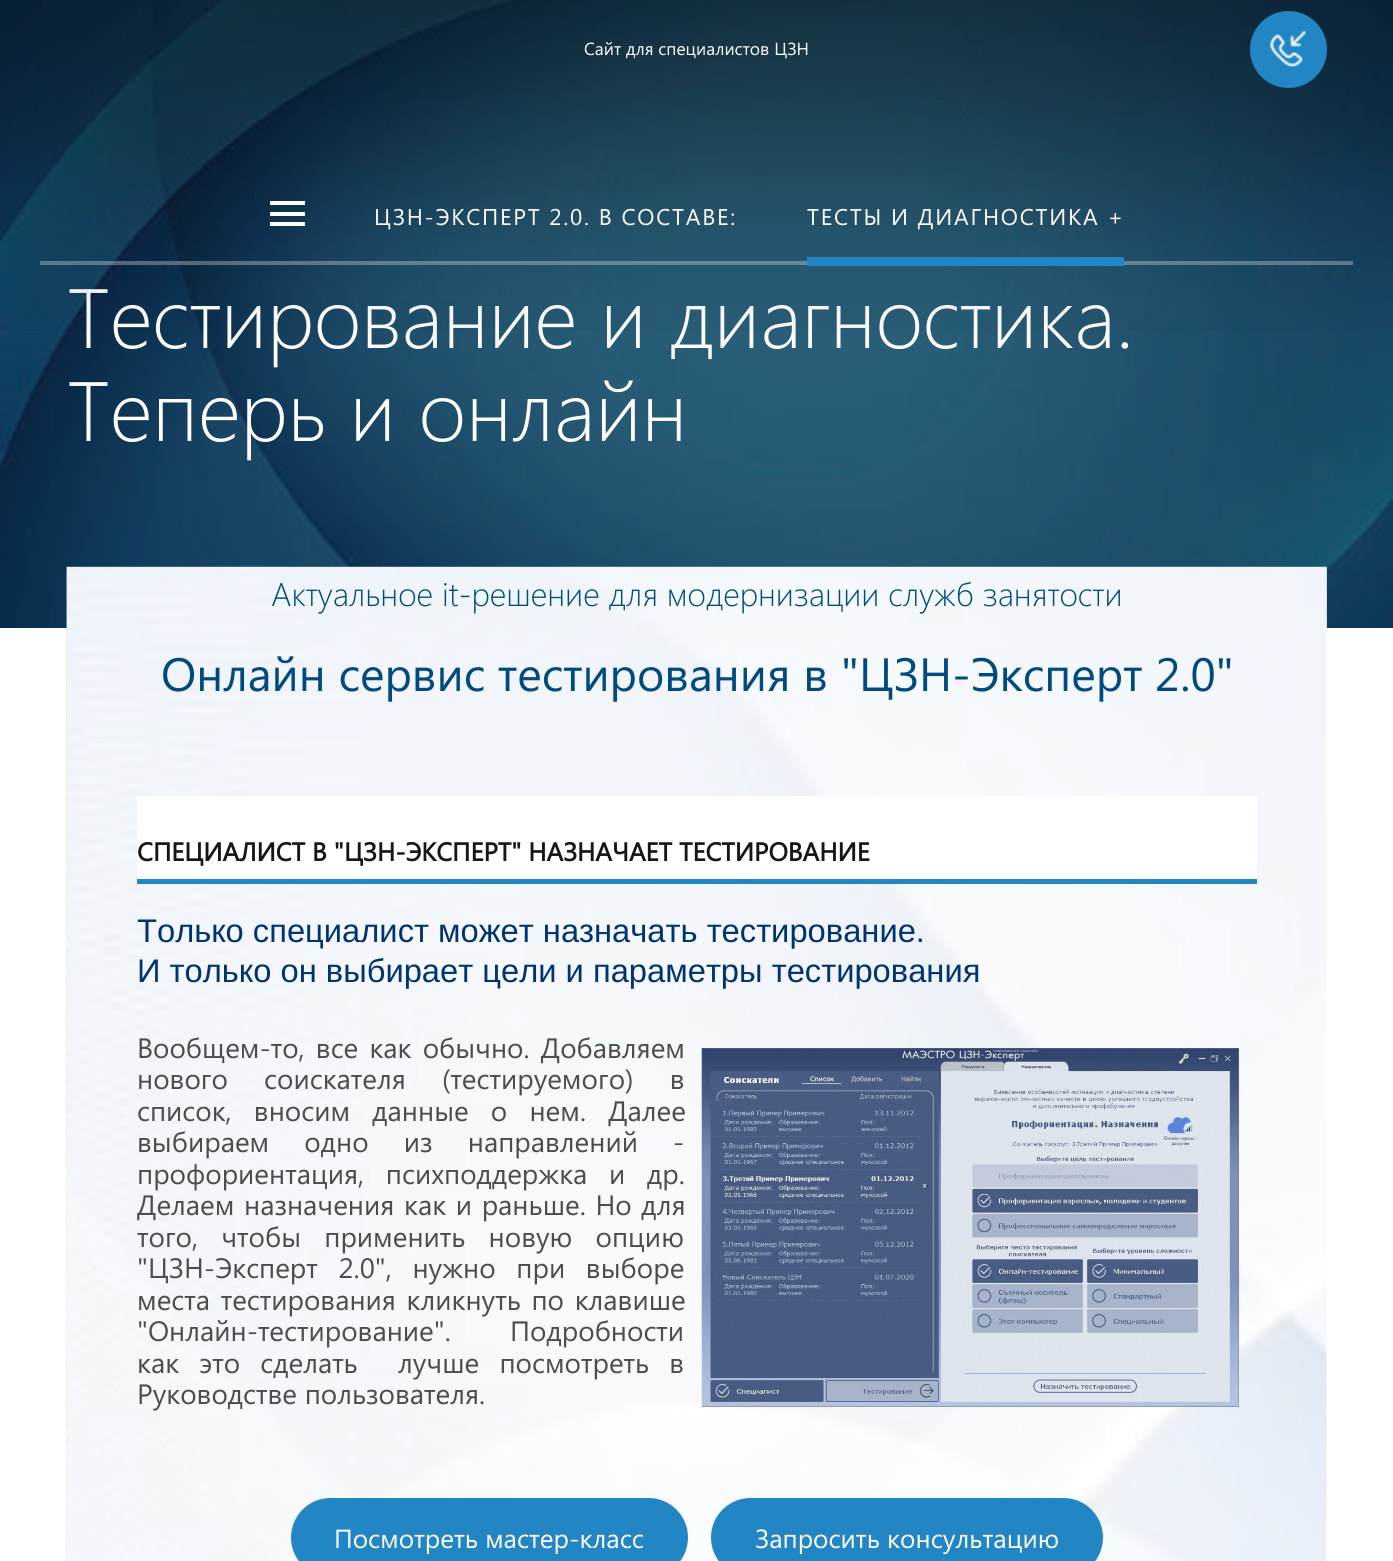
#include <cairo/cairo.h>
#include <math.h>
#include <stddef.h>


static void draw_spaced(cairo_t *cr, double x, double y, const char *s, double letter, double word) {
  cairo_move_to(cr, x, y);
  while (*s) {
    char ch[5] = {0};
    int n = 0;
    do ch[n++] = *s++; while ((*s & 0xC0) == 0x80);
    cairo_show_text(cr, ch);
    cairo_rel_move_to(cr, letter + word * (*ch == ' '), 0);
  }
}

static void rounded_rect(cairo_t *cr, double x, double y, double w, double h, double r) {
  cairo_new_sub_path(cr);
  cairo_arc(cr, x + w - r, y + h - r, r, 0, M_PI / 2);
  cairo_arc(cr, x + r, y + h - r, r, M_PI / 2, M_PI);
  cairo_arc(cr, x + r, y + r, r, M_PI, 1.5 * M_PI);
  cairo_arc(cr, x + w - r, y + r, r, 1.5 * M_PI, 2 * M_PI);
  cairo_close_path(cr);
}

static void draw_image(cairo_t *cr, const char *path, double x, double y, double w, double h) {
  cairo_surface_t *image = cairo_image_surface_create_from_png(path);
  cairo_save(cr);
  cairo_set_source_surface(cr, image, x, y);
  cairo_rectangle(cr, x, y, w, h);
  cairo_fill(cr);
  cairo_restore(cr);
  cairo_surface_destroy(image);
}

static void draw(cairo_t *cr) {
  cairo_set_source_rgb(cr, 1, 1, 1);
  cairo_paint(cr);
  draw_image(cr, "images/3.png", 0, 0, 1393, 628);
  draw_image(cr, "images/4.png", 66, 566, 1261, 995);
  cairo_set_source_rgba(cr, 1, 1, 1, 0.7);
  cairo_rectangle(cr, 67, 567, 1260, 994);
  cairo_fill(cr);
  cairo_set_source_rgb(cr, 1, 1, 1);
  cairo_rectangle(cr, 137, 796, 1120, 83);
  cairo_fill(cr);
  cairo_set_source_rgb(cr, 34 / 255.0, 133 / 255.0, 196 / 255.0);
  cairo_rectangle(cr, 137, 879, 1120, 5);
  cairo_fill(cr);
  draw_image(cr, "images/5.png", 701, 1048, 538, 359);
  rounded_rect(cr, 291, 1498, 397, 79, 39.5);
  cairo_fill(cr);
  rounded_rect(cr, 711, 1498, 392, 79, 39.5);
  cairo_fill(cr);
  cairo_select_font_face(cr, "Segoe UI Light", CAIRO_FONT_SLANT_NORMAL, CAIRO_FONT_WEIGHT_NORMAL);
  cairo_set_font_size(cr, 84);
  cairo_set_source_rgb(cr, 1, 1, 1);
  cairo_move_to(cr, 67, 348);
  cairo_show_text(cr, "Тестирование и диагностика.");
  draw_image(cr, "images/2.png", 0, 0, 1393, 331);
  cairo_set_source_rgba(cr, 1, 1, 1, 0.3);
  cairo_rectangle(cr, 40, 261, 1313, 4);
  cairo_fill(cr);
  cairo_set_source_rgb(cr, 34 / 255.0, 133 / 255.0, 196 / 255.0);
  cairo_rectangle(cr, 807, 257, 317, 9);
  cairo_fill(cr);
  cairo_select_font_face(cr, "Segoe UI", CAIRO_FONT_SLANT_NORMAL, CAIRO_FONT_WEIGHT_NORMAL);
  cairo_set_font_size(cr, 22.75);
  cairo_set_source_rgb(cr, 1, 1, 1);
  draw_spaced(cr, 807, 225, "ТЕСТЫ И ДИАГНОСТИКА +", 1.75, 0);
  draw_spaced(cr, 374, 225, "ЦЗН-ЭКСПЕРТ 2.0. В СОСТАВЕ:", 1.75, 0);
  cairo_rectangle(cr, 270, 222, 35, 4);
  cairo_fill(cr);
  cairo_rectangle(cr, 270, 212, 35, 4);
  cairo_fill(cr);
  cairo_rectangle(cr, 270, 201, 35, 4);
  cairo_fill(cr);
  cairo_set_source_rgb(cr, 34 / 255.0, 133 / 255.0, 196 / 255.0);
  cairo_arc(cr, 1288.5, 49.5, 38.5, 0, 2 * M_PI);
  cairo_fill(cr);
  draw_image(cr, "images/1.png", 1270, 31, 36, 36);
  cairo_set_font_size(cr, 17.5);
  cairo_set_source_rgb(cr, 1, 1, 1);
  cairo_move_to(cr, 584, 55);
  cairo_show_text(cr, "Сайт для специалистов ЦЗН");
  cairo_select_font_face(cr, "Segoe UI Light", CAIRO_FONT_SLANT_NORMAL, CAIRO_FONT_WEIGHT_NORMAL);
  cairo_set_font_size(cr, 84);
  cairo_move_to(cr, 67, 441);
  cairo_show_text(cr, "Теперь и онлайн");
  cairo_set_font_size(cr, 32.7);
  cairo_set_source_rgb(cr, 0, 74 / 255.0, 128 / 255.0);
  cairo_move_to(cr, 271, 606);
  cairo_show_text(cr, "Актуальное it-решение для модернизации служб занятости");
  cairo_select_font_face(cr, "Segoe UI", CAIRO_FONT_SLANT_NORMAL, CAIRO_FONT_WEIGHT_NORMAL);
  cairo_set_font_size(cr, 46.7);
  cairo_move_to(cr, 161, 691);
  cairo_show_text(cr, "Онлайн сервис тестирования в \"ЦЗН-Эксперт 2.0\"");
  cairo_select_font_face(cr, "Segoe UI", CAIRO_FONT_SLANT_NORMAL, CAIRO_FONT_WEIGHT_BOLD);
  cairo_set_font_size(cr, 25.7);
  cairo_set_source_rgb(cr, 22 / 255.0, 22 / 255.0, 22 / 255.0);
  cairo_move_to(cr, 137, 861);
  cairo_show_text(cr, "СПЕЦИАЛИСТ В \"ЦЗН-ЭКСПЕРТ\" НАЗНАЧАЕТ ТЕСТИРОВАНИЕ");
  cairo_select_font_face(cr, "Liberation Sans", CAIRO_FONT_SLANT_NORMAL, CAIRO_FONT_WEIGHT_NORMAL);
  cairo_set_font_size(cr, 32.7);
  cairo_set_source_rgb(cr, 0, 51 / 255.0, 112 / 255.0);
  cairo_move_to(cr, 137, 942);
  cairo_show_text(cr, "Только специалист может назначать тестирование.");
  cairo_move_to(cr, 137, 982);
  cairo_show_text(cr, "И только он выбирает цели и параметры тестирования");
  cairo_select_font_face(cr, "Segoe UI", CAIRO_FONT_SLANT_NORMAL, CAIRO_FONT_WEIGHT_NORMAL);
  cairo_set_font_size(cr, 28);
  cairo_set_source_rgb(cr, 77 / 255.0, 77 / 255.0, 77 / 255.0);
  draw_spaced(cr, 137, 1058, "Вообщем-то, все как обычно. Добавляем", 0, 3.5);
  draw_spaced(cr, 137, 1089, "нового соискателя (тестируемого) в", 0, 28.5);
  draw_spaced(cr, 137, 1121, "список, вносим данные о нем. Далее", 0, 14.5);
  draw_spaced(cr, 137, 1152, "выбираем одно из направлений -", 0, 27.5);
  draw_spaced(cr, 137, 1184, "профориентация, психподдержка и др.", 0, 14);
  draw_spaced(cr, 137, 1215, "Делаем назначения как и раньше. Но для", 0, 2);
  draw_spaced(cr, 137, 1247, "того, чтобы применить новую опцию", 0, 15.5);
  draw_spaced(cr, 137, 1278, "\"ЦЗН-Эксперт 2.0\", нужно при выборе", 0, 13);
  draw_spaced(cr, 137, 1310, "места тестирования кликнуть по клавише", 0, 3);
  draw_spaced(cr, 137, 1341, "\"Онлайн-тестирование\".  Подробности", 0, 22);
  draw_spaced(cr, 137, 1373, "как это сделать  лучше посмотреть в", 0, 12.5);
  cairo_move_to(cr, 137, 1404);
  cairo_show_text(cr, "Руководстве пользователя.");
  cairo_set_font_size(cr, 26.25);
  cairo_set_source_rgb(cr, 1, 1, 1);
  cairo_move_to(cr, 334, 1548);
  cairo_show_text(cr, "Посмотреть мастер-класс");
  cairo_move_to(cr, 755, 1548);
  cairo_show_text(cr, "Запросить консультацию");
}

int main(void) {
  cairo_surface_t *surface = cairo_image_surface_create(CAIRO_FORMAT_RGB24, 1393, 1561);
  cairo_t *cr = cairo_create(surface);
  cairo_font_options_t *options = cairo_font_options_create();
  cairo_font_options_set_hint_metrics(options, CAIRO_HINT_METRICS_OFF);
  cairo_font_options_set_hint_style(options, CAIRO_HINT_STYLE_NONE);
  cairo_set_font_options(cr, options);
  cairo_set_miter_limit(cr, 4);
  draw(cr);
  cairo_surface_write_to_png(surface, "out.png");
  cairo_font_options_destroy(options);
  cairo_destroy(cr);
  cairo_surface_destroy(surface);
  return 0;
}
